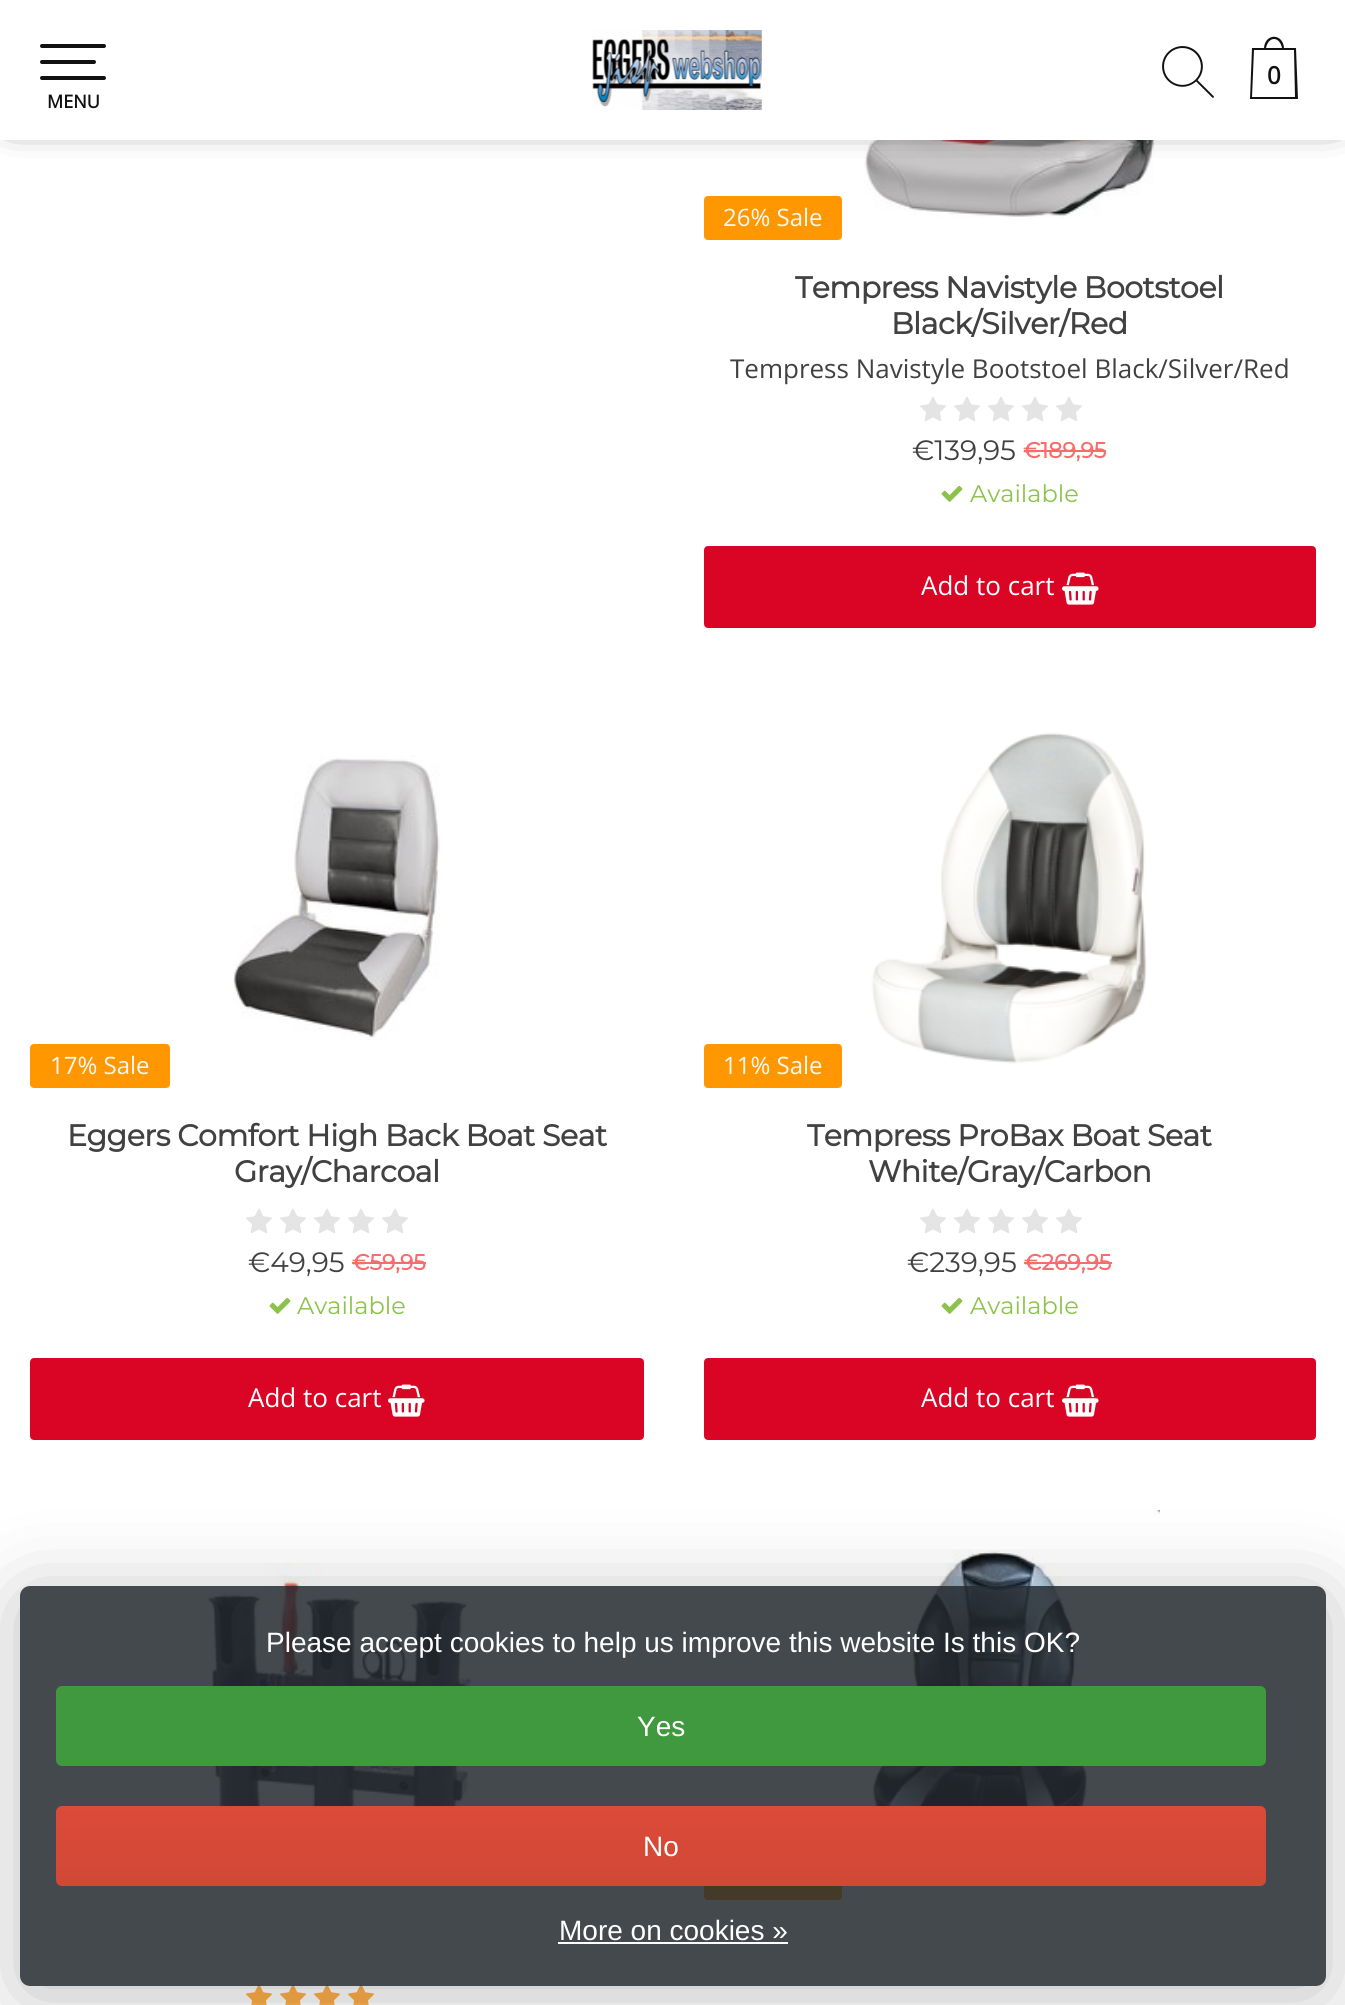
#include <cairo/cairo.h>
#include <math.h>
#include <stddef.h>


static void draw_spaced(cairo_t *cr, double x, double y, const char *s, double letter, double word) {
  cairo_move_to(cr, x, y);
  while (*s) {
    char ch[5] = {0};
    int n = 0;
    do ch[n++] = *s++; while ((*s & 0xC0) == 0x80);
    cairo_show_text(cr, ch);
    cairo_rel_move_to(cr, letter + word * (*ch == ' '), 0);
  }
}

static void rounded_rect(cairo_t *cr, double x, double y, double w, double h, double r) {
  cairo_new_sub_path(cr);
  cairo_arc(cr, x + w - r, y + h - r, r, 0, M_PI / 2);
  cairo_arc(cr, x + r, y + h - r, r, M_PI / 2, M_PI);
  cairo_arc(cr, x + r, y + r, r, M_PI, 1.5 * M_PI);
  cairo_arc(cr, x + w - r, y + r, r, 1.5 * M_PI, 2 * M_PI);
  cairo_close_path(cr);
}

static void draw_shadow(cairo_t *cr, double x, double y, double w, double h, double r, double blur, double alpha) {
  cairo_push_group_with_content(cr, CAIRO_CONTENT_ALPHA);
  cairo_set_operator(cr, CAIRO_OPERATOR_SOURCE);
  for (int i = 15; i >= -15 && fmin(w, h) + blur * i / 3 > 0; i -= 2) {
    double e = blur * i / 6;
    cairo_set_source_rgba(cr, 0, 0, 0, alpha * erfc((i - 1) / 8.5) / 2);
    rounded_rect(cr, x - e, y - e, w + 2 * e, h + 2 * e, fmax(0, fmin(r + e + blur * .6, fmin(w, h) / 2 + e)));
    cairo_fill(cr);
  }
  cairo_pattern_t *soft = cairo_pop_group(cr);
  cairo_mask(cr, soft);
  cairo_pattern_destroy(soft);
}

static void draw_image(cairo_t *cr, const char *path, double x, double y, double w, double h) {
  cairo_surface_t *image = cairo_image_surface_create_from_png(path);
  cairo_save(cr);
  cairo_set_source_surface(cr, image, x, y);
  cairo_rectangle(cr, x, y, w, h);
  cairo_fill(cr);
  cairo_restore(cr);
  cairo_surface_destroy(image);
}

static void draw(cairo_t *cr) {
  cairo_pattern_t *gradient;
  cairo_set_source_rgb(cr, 1, 1, 1);
  cairo_paint(cr);
  draw_image(cr, "images/3.png", 864, 140, 292, 78);
  cairo_set_source_rgb(cr, 0, 0, 0);
  draw_shadow(cr, 12, 12, 1322, 96, 0, 20, 1);
  draw_shadow(cr, 12, 12, 1322, 96, 0, 20, 1);
  cairo_set_source_rgb(cr, 1, 1, 1);
  cairo_rectangle(cr, 0, 0, 1345, 140);
  cairo_fill(cr);
  draw_image(cr, "images/1.png", 592, 30, 170, 80);
  draw_image(cr, "images/2.png", 1162, 46, 52, 52);
  cairo_set_source_rgb(cr, 17 / 255.0, 17 / 255.0, 17 / 255.0);
  cairo_new_path(cr);
  cairo_move_to(cr, 1296, 48);
  cairo_line_to(cr, 1284, 48);
  cairo_curve_to(cr, 1283, 33, 1265, 33, 1264, 48);
  cairo_line_to(cr, 1252, 48);
  cairo_line_to(cr, 1250, 99);
  cairo_line_to(cr, 1298, 99);
  cairo_close_path(cr);
  cairo_move_to(cr, 1274, 39);
  cairo_curve_to(cr, 1278, 39, 1281, 43, 1282, 48);
  cairo_line_to(cr, 1266, 48);
  cairo_curve_to(cr, 1267, 43, 1270, 39, 1274, 39);
  cairo_close_path(cr);
  cairo_move_to(cr, 1252, 97);
  cairo_line_to(cr, 1254, 50);
  cairo_line_to(cr, 1294, 50);
  cairo_line_to(cr, 1295, 97);
  cairo_close_path(cr);
  cairo_fill(cr);
  rounded_rect(cr, 40, 44, 66, 4, 2);
  cairo_fill(cr);
  rounded_rect(cr, 40, 60, 56, 4, 2);
  cairo_fill(cr);
  rounded_rect(cr, 40, 76, 66, 4, 2);
  cairo_fill(cr);
  cairo_set_source_rgb(cr, 1, 152 / 255.0, 0);
  rounded_rect(cr, 704, 196, 138, 44, 4);
  cairo_fill(cr);
  draw_image(cr, "images/4.png", 920, 396, 26, 26);
  draw_image(cr, "images/4.png", 954, 396, 26, 26);
  draw_image(cr, "images/4.png", 988, 396, 26, 26);
  draw_image(cr, "images/4.png", 1022, 396, 26, 26);
  draw_image(cr, "images/4.png", 1056, 396, 26, 26);
  cairo_set_source_rgb(cr, 250 / 255.0, 107 / 255.0, 107 / 255.0);
  cairo_rectangle(cr, 1024, 450, 82, 2);
  cairo_fill(cr);
  draw_image(cr, "images/5.png", 941, 485, 22, 17);
  cairo_set_source_rgb(cr, 218 / 255.0, 5 / 255.0, 37 / 255.0);
  rounded_rect(cr, 705, 547, 610, 80, 3);
  cairo_fill_preserve(cr);
  cairo_stroke(cr);
  draw_image(cr, "images/6.png", 1062, 572, 37, 33);
  draw_image(cr, "images/7.png", 233, 755, 207, 285);
  cairo_set_source_rgb(cr, 1, 152 / 255.0, 0);
  rounded_rect(cr, 30, 1044, 140, 44, 4);
  cairo_fill(cr);
  draw_image(cr, "images/4.png", 246, 1208, 26, 26);
  draw_image(cr, "images/4.png", 280, 1208, 26, 26);
  draw_image(cr, "images/4.png", 314, 1208, 26, 26);
  draw_image(cr, "images/4.png", 348, 1208, 26, 26);
  draw_image(cr, "images/4.png", 382, 1208, 26, 26);
  cairo_set_source_rgb(cr, 250 / 255.0, 107 / 255.0, 107 / 255.0);
  cairo_rectangle(cr, 352, 1262, 74, 2);
  cairo_fill(cr);
  draw_image(cr, "images/5.png", 269, 1297, 22, 17);
  cairo_set_source_rgb(cr, 218 / 255.0, 5 / 255.0, 37 / 255.0);
  rounded_rect(cr, 31, 1359, 612, 80, 3);
  cairo_fill_preserve(cr);
  cairo_stroke(cr);
  draw_image(cr, "images/6.png", 388, 1384, 37, 33);
  cairo_set_source_rgb(cr, 1, 152 / 255.0, 0);
  rounded_rect(cr, 704, 1044, 138, 44, 4);
  cairo_fill(cr);
  draw_image(cr, "images/8.png", 871, 732, 276, 332);
  draw_image(cr, "images/4.png", 920, 1208, 26, 26);
  draw_image(cr, "images/4.png", 954, 1208, 26, 26);
  draw_image(cr, "images/4.png", 988, 1208, 26, 26);
  draw_image(cr, "images/4.png", 1022, 1208, 26, 26);
  draw_image(cr, "images/4.png", 1056, 1208, 26, 26);
  cairo_set_source_rgb(cr, 250 / 255.0, 107 / 255.0, 107 / 255.0);
  cairo_rectangle(cr, 1024, 1262, 88, 2);
  cairo_fill(cr);
  draw_image(cr, "images/5.png", 941, 1297, 22, 17);
  cairo_set_source_rgb(cr, 218 / 255.0, 5 / 255.0, 37 / 255.0);
  rounded_rect(cr, 705, 1359, 610, 80, 3);
  cairo_fill_preserve(cr);
  cairo_stroke(cr);
  draw_image(cr, "images/6.png", 1062, 1384, 37, 33);
  draw_image(cr, "images/9.png", 201, 1563, 278, 243);
  draw_image(cr, "images/10.png", 246, 1984, 26, 21);
  draw_image(cr, "images/10.png", 280, 1984, 26, 21);
  draw_image(cr, "images/10.png", 314, 1984, 26, 21);
  draw_image(cr, "images/10.png", 348, 1984, 26, 21);
  draw_image(cr, "images/11.png", 873, 1510, 287, 296);
  cairo_set_source_rgb(cr, 1, 152 / 255.0, 0);
  rounded_rect(cr, 704, 1856, 138, 44, 4);
  cairo_fill(cr);
  cairo_save(cr);
  cairo_set_fill_rule(cr, CAIRO_FILL_RULE_EVEN_ODD);
  cairo_new_path(cr);
  cairo_move_to(cr, 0, 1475);
  cairo_line_to(cr, 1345, 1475);
  cairo_line_to(cr, 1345, 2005);
  cairo_line_to(cr, 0, 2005);
  cairo_close_path(cr);
  cairo_move_to(cr, 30, 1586);
  cairo_line_to(cr, 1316, 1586);
  cairo_curve_to(cr, 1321.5, 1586, 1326, 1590.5, 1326, 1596);
  cairo_line_to(cr, 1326, 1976);
  cairo_curve_to(cr, 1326, 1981.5, 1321.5, 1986, 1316, 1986);
  cairo_line_to(cr, 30, 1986);
  cairo_curve_to(cr, 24.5, 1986, 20, 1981.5, 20, 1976);
  cairo_line_to(cr, 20, 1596);
  cairo_curve_to(cr, 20, 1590.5, 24.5, 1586, 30, 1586);
  cairo_close_path(cr);
  cairo_clip(cr);
  cairo_set_source_rgb(cr, 0, 0, 0);
  draw_shadow(cr, 20, 1596, 1306, 400, 10, 40, 0.25);
  cairo_restore(cr);
  cairo_set_source_rgba(cr, 36 / 255.0, 42 / 255.0, 48 / 255.0, 0.85);
  rounded_rect(cr, 20, 1586, 1306, 400, 10);
  cairo_fill(cr);
  cairo_set_source_rgb(cr, 64 / 255.0, 152 / 255.0, 63 / 255.0);
  rounded_rect(cr, 56, 1686, 1210, 80, 6);
  cairo_fill(cr);
  gradient = cairo_pattern_create_linear(661, 1806, 661, 1886);
  cairo_pattern_add_color_stop_rgba(gradient, 0, 220 / 255.0, 74 / 255.0, 56 / 255.0, 1);
  cairo_pattern_add_color_stop_rgba(gradient, 1, 209 / 255.0, 72 / 255.0, 54 / 255.0, 1);
  cairo_set_source(cr, gradient);
  cairo_pattern_destroy(gradient);
  rounded_rect(cr, 56, 1806, 1210, 80, 6);
  cairo_fill(cr);
  cairo_set_source_rgb(cr, 1, 1, 1);
  cairo_rectangle(cr, 558, 1942, 230, 2);
  cairo_fill(cr);
  cairo_select_font_face(cr, "Open Sans", CAIRO_FONT_SLANT_NORMAL, CAIRO_FONT_WEIGHT_BOLD);
  cairo_set_font_size(cr, 24);
  cairo_set_source_rgb(cr, 17 / 255.0, 17 / 255.0, 17 / 255.0);
  cairo_move_to(cr, 1267, 84);
  cairo_show_text(cr, "0");
  cairo_set_font_size(cr, 18);
  cairo_move_to(cr, 47, 108);
  cairo_show_text(cr, "MENU");
  cairo_select_font_face(cr, "Open Sans", CAIRO_FONT_SLANT_NORMAL, CAIRO_FONT_WEIGHT_NORMAL);
  cairo_set_font_size(cr, 24);
  cairo_set_source_rgb(cr, 247 / 255.0, 247 / 255.0, 247 / 255.0);
  cairo_move_to(cr, 723, 226);
  cairo_show_text(cr, "26% Sale");
  cairo_select_font_face(cr, "Montserrat", CAIRO_FONT_SLANT_NORMAL, CAIRO_FONT_WEIGHT_BOLD);
  cairo_set_font_size(cr, 30);
  cairo_set_source_rgb(cr, 65 / 255.0, 65 / 255.0, 65 / 255.0);
  draw_spaced(cr, 795, 298, "Tempress Navistyle Bootstoel", -0.5, 0);
  draw_spaced(cr, 891, 334, "Black/Silver/Red", -0.5, 0);
  cairo_select_font_face(cr, "Open Sans", CAIRO_FONT_SLANT_NORMAL, CAIRO_FONT_WEIGHT_NORMAL);
  cairo_set_font_size(cr, 26);
  cairo_move_to(cr, 730, 378);
  cairo_show_text(cr, "Tempress Navistyle Bootstoel Black/Silver/Red");
  cairo_select_font_face(cr, "Montserrat Thin", CAIRO_FONT_SLANT_NORMAL, CAIRO_FONT_WEIGHT_NORMAL);
  cairo_set_font_size(cr, 28);
  cairo_move_to(cr, 912, 460);
  cairo_show_text(cr, "€139,95");
  cairo_select_font_face(cr, "Montserrat", CAIRO_FONT_SLANT_NORMAL, CAIRO_FONT_WEIGHT_BOLD);
  cairo_set_font_size(cr, 22);
  cairo_set_source_rgb(cr, 250 / 255.0, 107 / 255.0, 107 / 255.0);
  cairo_move_to(cr, 1023, 458);
  cairo_show_text(cr, "€189,95");
  cairo_select_font_face(cr, "Montserrat Thin", CAIRO_FONT_SLANT_NORMAL, CAIRO_FONT_WEIGHT_NORMAL);
  cairo_set_font_size(cr, 24);
  cairo_set_source_rgb(cr, 139 / 255.0, 195 / 255.0, 74 / 255.0);
  cairo_move_to(cr, 970, 502);
  cairo_show_text(cr, "Available");
  cairo_select_font_face(cr, "Open Sans", CAIRO_FONT_SLANT_NORMAL, CAIRO_FONT_WEIGHT_NORMAL);
  cairo_set_font_size(cr, 26);
  cairo_set_source_rgb(cr, 1, 1, 1);
  cairo_move_to(cr, 921, 595);
  cairo_show_text(cr, "Add to cart");
  cairo_set_font_size(cr, 24);
  cairo_set_source_rgb(cr, 247 / 255.0, 247 / 255.0, 247 / 255.0);
  cairo_move_to(cr, 50, 1074);
  cairo_show_text(cr, "17% Sale");
  cairo_select_font_face(cr, "Montserrat", CAIRO_FONT_SLANT_NORMAL, CAIRO_FONT_WEIGHT_BOLD);
  cairo_set_font_size(cr, 30);
  cairo_set_source_rgb(cr, 65 / 255.0, 65 / 255.0, 65 / 255.0);
  draw_spaced(cr, 67, 1146, "Eggers Comfort High Back Boat Seat", -0.5, 0);
  draw_spaced(cr, 234, 1182, "Gray/Charcoal", -0.5, 0);
  cairo_select_font_face(cr, "Montserrat Thin", CAIRO_FONT_SLANT_NORMAL, CAIRO_FONT_WEIGHT_NORMAL);
  cairo_set_font_size(cr, 28);
  cairo_move_to(cr, 248, 1272);
  cairo_show_text(cr, "€49,95");
  cairo_select_font_face(cr, "Montserrat", CAIRO_FONT_SLANT_NORMAL, CAIRO_FONT_WEIGHT_BOLD);
  cairo_set_font_size(cr, 22);
  cairo_set_source_rgb(cr, 250 / 255.0, 107 / 255.0, 107 / 255.0);
  cairo_move_to(cr, 352, 1270);
  cairo_show_text(cr, "€59,95");
  cairo_select_font_face(cr, "Montserrat Thin", CAIRO_FONT_SLANT_NORMAL, CAIRO_FONT_WEIGHT_NORMAL);
  cairo_set_font_size(cr, 24);
  cairo_set_source_rgb(cr, 139 / 255.0, 195 / 255.0, 74 / 255.0);
  cairo_move_to(cr, 297, 1314);
  cairo_show_text(cr, "Available");
  cairo_select_font_face(cr, "Open Sans", CAIRO_FONT_SLANT_NORMAL, CAIRO_FONT_WEIGHT_NORMAL);
  cairo_set_font_size(cr, 26);
  cairo_set_source_rgb(cr, 1, 1, 1);
  cairo_move_to(cr, 248, 1407);
  cairo_show_text(cr, "Add to cart");
  cairo_set_font_size(cr, 24);
  cairo_set_source_rgb(cr, 247 / 255.0, 247 / 255.0, 247 / 255.0);
  cairo_move_to(cr, 723, 1074);
  cairo_show_text(cr, "11% Sale");
  cairo_select_font_face(cr, "Montserrat", CAIRO_FONT_SLANT_NORMAL, CAIRO_FONT_WEIGHT_BOLD);
  cairo_set_font_size(cr, 30);
  cairo_set_source_rgb(cr, 65 / 255.0, 65 / 255.0, 65 / 255.0);
  draw_spaced(cr, 807, 1146, "Tempress ProBax Boat Seat", -0.5, 0);
  draw_spaced(cr, 868, 1182, "White/Gray/Carbon", -0.5, 0);
  cairo_select_font_face(cr, "Montserrat Thin", CAIRO_FONT_SLANT_NORMAL, CAIRO_FONT_WEIGHT_NORMAL);
  cairo_set_font_size(cr, 28);
  cairo_move_to(cr, 907, 1272);
  cairo_show_text(cr, "€239,95");
  cairo_select_font_face(cr, "Montserrat", CAIRO_FONT_SLANT_NORMAL, CAIRO_FONT_WEIGHT_BOLD);
  cairo_set_font_size(cr, 22);
  cairo_set_source_rgb(cr, 250 / 255.0, 107 / 255.0, 107 / 255.0);
  cairo_move_to(cr, 1024, 1270);
  cairo_show_text(cr, "€269,95");
  cairo_select_font_face(cr, "Montserrat Thin", CAIRO_FONT_SLANT_NORMAL, CAIRO_FONT_WEIGHT_NORMAL);
  cairo_set_font_size(cr, 24);
  cairo_set_source_rgb(cr, 139 / 255.0, 195 / 255.0, 74 / 255.0);
  cairo_move_to(cr, 970, 1314);
  cairo_show_text(cr, "Available");
  cairo_select_font_face(cr, "Open Sans", CAIRO_FONT_SLANT_NORMAL, CAIRO_FONT_WEIGHT_NORMAL);
  cairo_set_font_size(cr, 26);
  cairo_set_source_rgb(cr, 1, 1, 1);
  cairo_move_to(cr, 921, 1407);
  cairo_show_text(cr, "Add to cart");
  cairo_select_font_face(cr, "Liberation Sans", CAIRO_FONT_SLANT_NORMAL, CAIRO_FONT_WEIGHT_NORMAL);
  cairo_set_font_size(cr, 28);
  cairo_move_to(cr, 266, 1652);
  cairo_show_text(cr, "Please accept cookies to help us improve this website Is this OK?");
  cairo_move_to(cr, 637, 1736);
  cairo_show_text(cr, "Yes");
  cairo_move_to(cr, 643, 1856);
  cairo_show_text(cr, "No");
  cairo_move_to(cr, 559, 1940);
  cairo_show_text(cr, "More on cookies »");
}

int main(void) {
  cairo_surface_t *surface = cairo_image_surface_create(CAIRO_FORMAT_RGB24, 1345, 2005);
  cairo_t *cr = cairo_create(surface);
  cairo_font_options_t *options = cairo_font_options_create();
  cairo_font_options_set_hint_metrics(options, CAIRO_HINT_METRICS_OFF);
  cairo_font_options_set_hint_style(options, CAIRO_HINT_STYLE_NONE);
  cairo_set_font_options(cr, options);
  cairo_set_miter_limit(cr, 4);
  draw(cr);
  cairo_surface_write_to_png(surface, "out.png");
  cairo_font_options_destroy(options);
  cairo_destroy(cr);
  cairo_surface_destroy(surface);
  return 0;
}
